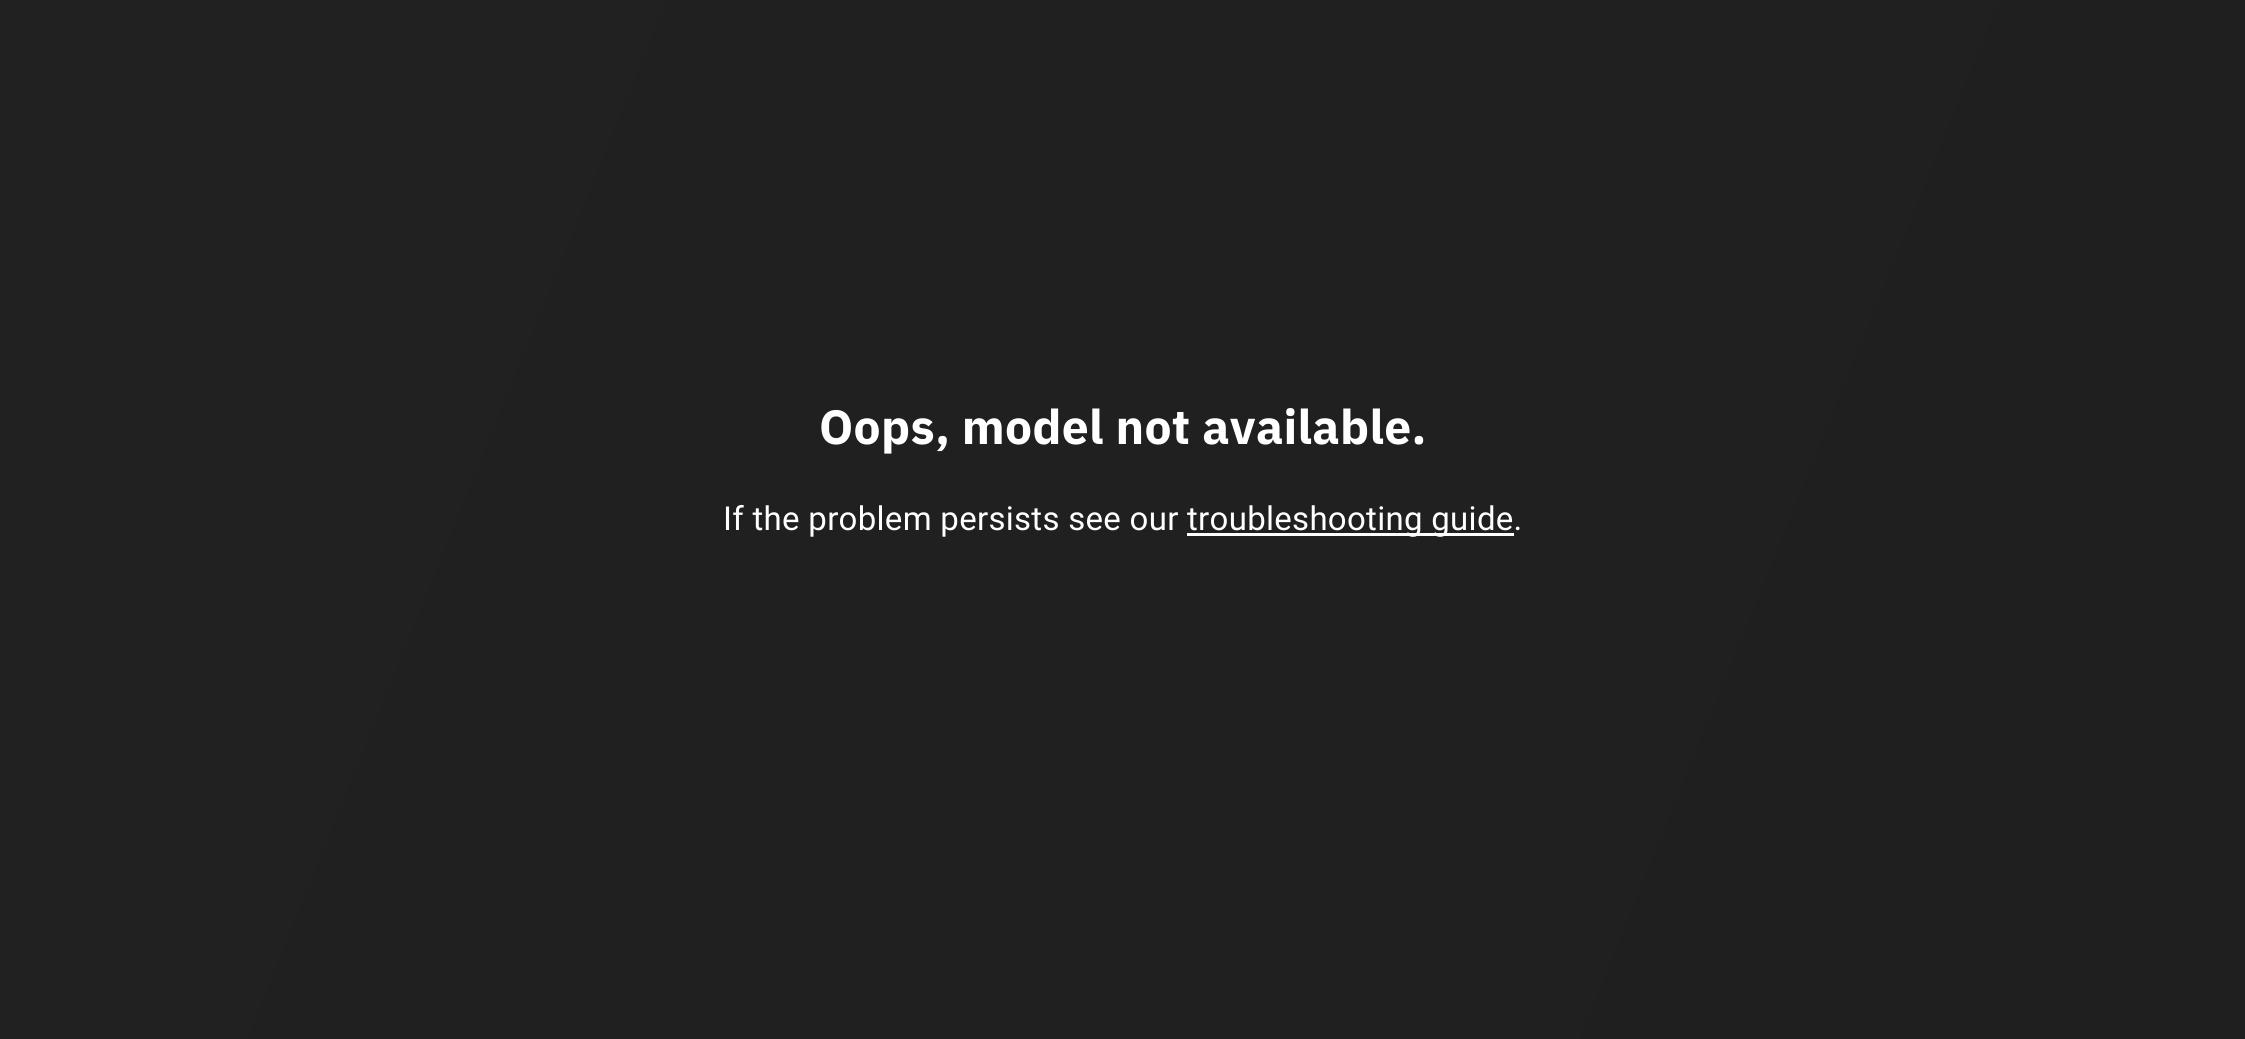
#include <cairo/cairo.h>
#include <math.h>
#include <stddef.h>


static void draw_spaced(cairo_t *cr, double x, double y, const char *s, double letter, double word) {
  cairo_move_to(cr, x, y);
  while (*s) {
    char ch[5] = {0};
    int n = 0;
    do ch[n++] = *s++; while ((*s & 0xC0) == 0x80);
    cairo_show_text(cr, ch);
    cairo_rel_move_to(cr, letter + word * (*ch == ' '), 0);
  }
}

static void draw(cairo_t *cr) {
  cairo_pattern_t *gradient;
  cairo_set_source_rgb(cr, 1, 1, 1);
  cairo_paint(cr);
  gradient = cairo_pattern_create_linear(-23, 57, 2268, 983);
  cairo_pattern_add_color_stop_rgba(gradient, 0, 33 / 255.0, 33 / 255.0, 33 / 255.0, 1);
  cairo_pattern_add_color_stop_rgba(gradient, 1, 31 / 255.0, 31 / 255.0, 31 / 255.0, 1);
  cairo_set_source(cr, gradient);
  cairo_pattern_destroy(gradient);
  cairo_rectangle(cr, 0, 0, 2245, 1039);
  cairo_fill(cr);
  cairo_set_source_rgb(cr, 1, 1, 1);
  cairo_rectangle(cr, 1187, 533, 327, 3);
  cairo_fill(cr);
  cairo_select_font_face(cr, "IBM Plex Sans", CAIRO_FONT_SLANT_NORMAL, CAIRO_FONT_WEIGHT_BOLD);
  cairo_set_font_size(cr, 48);
  draw_spaced(cr, 819, 444, "Oops, model not available.", 0.3, 0);
  cairo_select_font_face(cr, "Roboto", CAIRO_FONT_SLANT_NORMAL, CAIRO_FONT_WEIGHT_NORMAL);
  cairo_set_font_size(cr, 33);
  draw_spaced(cr, 723, 530, "If the problem persists see our", 0.3, 0);
  draw_spaced(cr, 1187, 530, "troubleshooting guide.", 0.3, 0);
}

int main(void) {
  cairo_surface_t *surface = cairo_image_surface_create(CAIRO_FORMAT_RGB24, 2245, 1039);
  cairo_t *cr = cairo_create(surface);
  cairo_font_options_t *options = cairo_font_options_create();
  cairo_font_options_set_hint_metrics(options, CAIRO_HINT_METRICS_OFF);
  cairo_font_options_set_hint_style(options, CAIRO_HINT_STYLE_NONE);
  cairo_set_font_options(cr, options);
  cairo_set_miter_limit(cr, 4);
  draw(cr);
  cairo_surface_write_to_png(surface, "out.png");
  cairo_font_options_destroy(options);
  cairo_destroy(cr);
  cairo_surface_destroy(surface);
  return 0;
}
